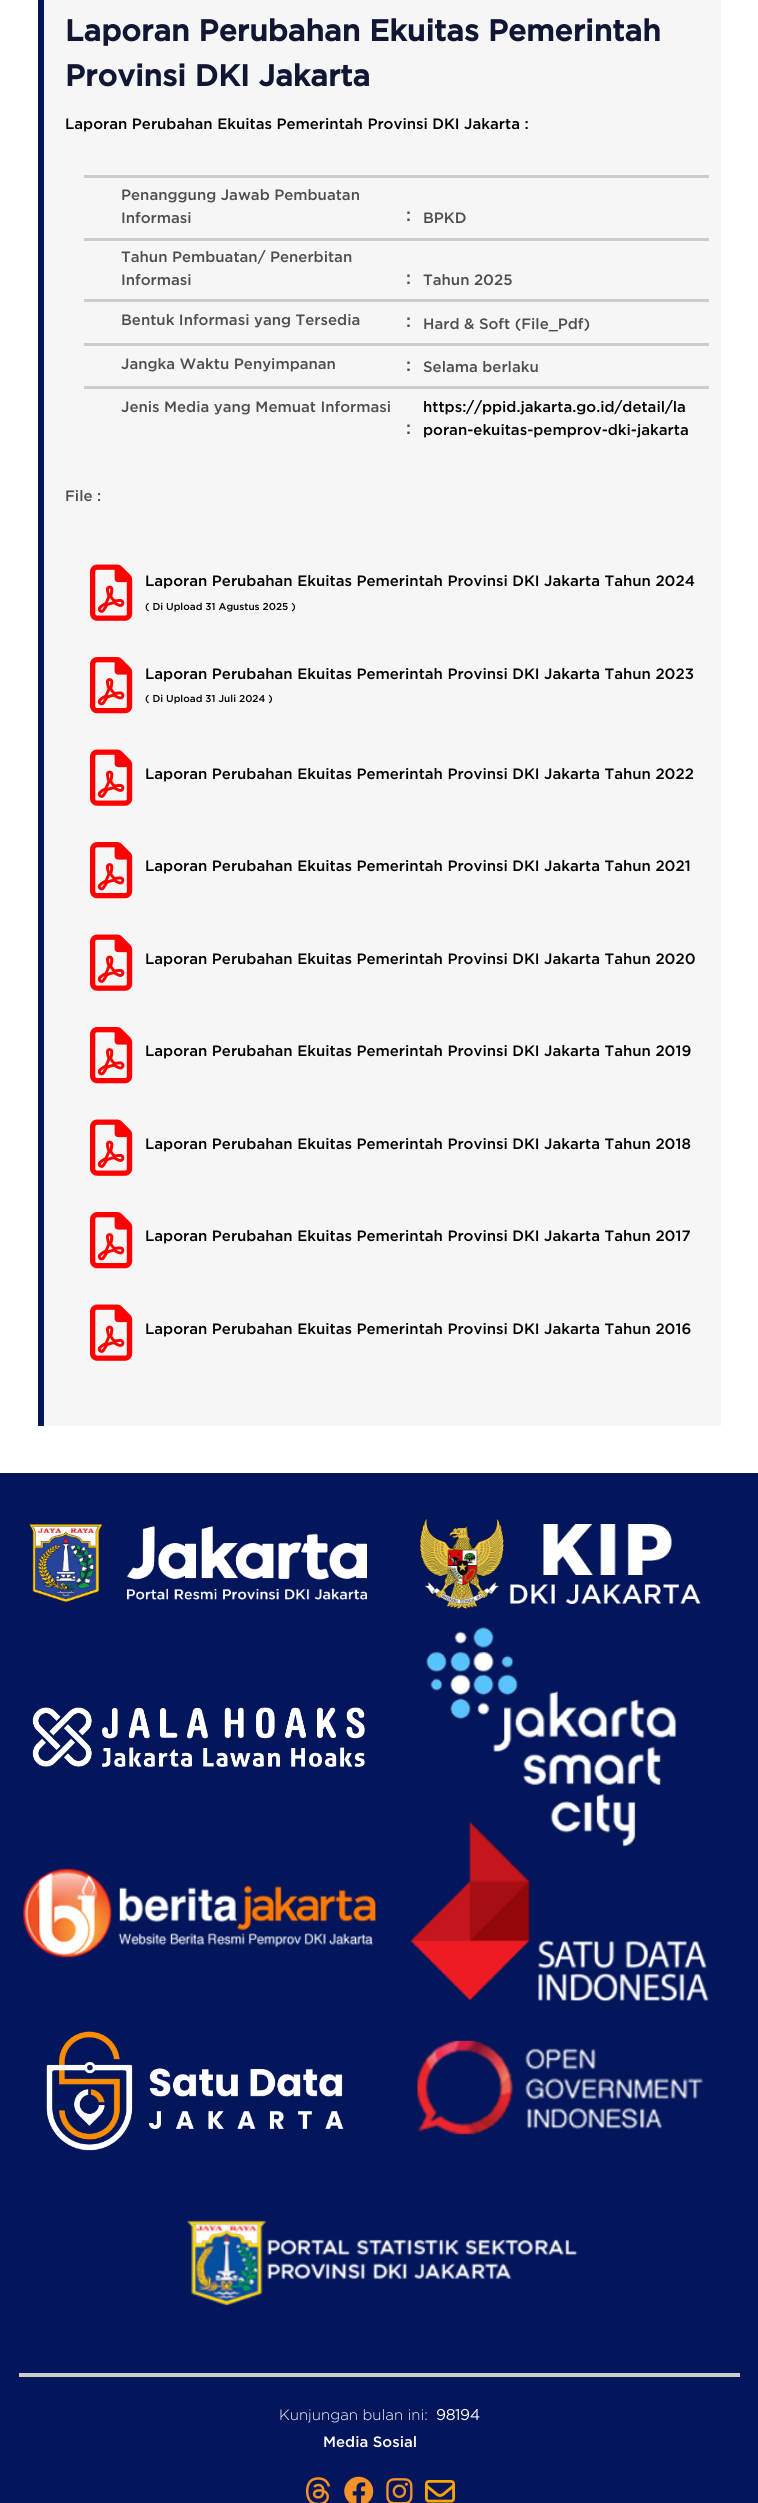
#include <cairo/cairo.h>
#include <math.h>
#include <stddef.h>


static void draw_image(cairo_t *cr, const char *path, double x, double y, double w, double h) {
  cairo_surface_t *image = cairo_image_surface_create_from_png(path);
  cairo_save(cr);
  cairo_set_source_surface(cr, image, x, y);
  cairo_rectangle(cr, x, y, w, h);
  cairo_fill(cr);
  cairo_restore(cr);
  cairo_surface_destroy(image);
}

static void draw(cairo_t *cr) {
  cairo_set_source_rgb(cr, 1, 1, 1);
  cairo_paint(cr);
  cairo_set_source_rgb(cr, 246 / 255.0, 246 / 255.0, 246 / 255.0);
  cairo_rectangle(cr, 44, 0, 677, 1426);
  cairo_fill(cr);
  cairo_set_source_rgb(cr, 3 / 255.0, 21 / 255.0, 91 / 255.0);
  cairo_rectangle(cr, 38, 0, 6, 1426);
  cairo_fill(cr);
  cairo_set_source_rgb(cr, 204 / 255.0, 204 / 255.0, 204 / 255.0);
  cairo_rectangle(cr, 84, 175, 625, 3);
  cairo_fill(cr);
  cairo_rectangle(cr, 84, 238, 625, 3);
  cairo_fill(cr);
  cairo_rectangle(cr, 84, 299, 625, 3);
  cairo_fill(cr);
  cairo_rectangle(cr, 84, 343, 625, 3);
  cairo_fill(cr);
  cairo_rectangle(cr, 84, 386, 625, 3);
  cairo_fill(cr);
  draw_image(cr, "images/1.png", 90, 564, 43, 57);
  draw_image(cr, "images/2.png", 90, 657, 43, 57);
  draw_image(cr, "images/1.png", 90, 749, 43, 57);
  draw_image(cr, "images/2.png", 90, 842, 43, 57);
  draw_image(cr, "images/1.png", 90, 934, 43, 57);
  draw_image(cr, "images/2.png", 90, 1027, 43, 57);
  draw_image(cr, "images/1.png", 90, 1119, 43, 57);
  draw_image(cr, "images/2.png", 90, 1212, 43, 57);
  draw_image(cr, "images/1.png", 90, 1304, 43, 57);
  cairo_set_source_rgb(cr, 3 / 255.0, 21 / 255.0, 91 / 255.0);
  cairo_rectangle(cr, 0, 1473, 758, 1030);
  cairo_fill(cr);
  draw_image(cr, "images/3.png", 29, 1524, 338, 79);
  draw_image(cr, "images/4.png", 32, 1707, 333, 60);
  draw_image(cr, "images/5.png", 23, 1868, 353, 91);
  draw_image(cr, "images/6.png", 46, 2031, 298, 120);
  draw_image(cr, "images/7.png", 419, 1518, 282, 91);
  draw_image(cr, "images/8.png", 426, 1627, 251, 220);
  draw_image(cr, "images/9.png", 411, 1822, 298, 180);
  draw_image(cr, "images/10.png", 417, 2040, 286, 95);
  draw_image(cr, "images/11.png", 186, 2220, 392, 86);
  cairo_set_source_rgb(cr, 204 / 255.0, 204 / 255.0, 204 / 255.0);
  cairo_rectangle(cr, 19, 2373, 721, 4);
  cairo_fill(cr);
  draw_image(cr, "images/12.png", 305, 2477, 26, 26);
  draw_image(cr, "images/13.png", 344, 2476, 30, 27);
  draw_image(cr, "images/14.png", 386, 2478, 27, 25);
  draw_image(cr, "images/15.png", 425, 2480, 30, 23);
  cairo_select_font_face(cr, "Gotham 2", CAIRO_FONT_SLANT_NORMAL, CAIRO_FONT_WEIGHT_BOLD);
  cairo_set_font_size(cr, 30);
  cairo_set_source_rgb(cr, 16 / 255.0, 22 / 255.0, 51 / 255.0);
  cairo_move_to(cr, 65, 41);
  cairo_show_text(cr, "Laporan Perubahan Ekuitas Pemerintah");
  cairo_move_to(cr, 65, 86);
  cairo_show_text(cr, "Provinsi DKI Jakarta");
  cairo_select_font_face(cr, "Gotham Medium", CAIRO_FONT_SLANT_NORMAL, CAIRO_FONT_WEIGHT_NORMAL);
  cairo_set_font_size(cr, 15);
  cairo_set_source_rgb(cr, 0, 0, 0);
  cairo_move_to(cr, 65, 129);
  cairo_show_text(cr, "Laporan Perubahan Ekuitas Pemerintah Provinsi DKI Jakarta :");
  cairo_set_source_rgb(cr, 78 / 255.0, 78 / 255.0, 78 / 255.0);
  cairo_move_to(cr, 121, 200);
  cairo_show_text(cr, "Penanggung Jawab Pembuatan");
  cairo_move_to(cr, 121, 223);
  cairo_show_text(cr, "Informasi");
  cairo_set_font_size(cr, 18);
  cairo_move_to(cr, 406, 221);
  cairo_show_text(cr, ":");
  cairo_set_font_size(cr, 15);
  cairo_move_to(cr, 423, 223);
  cairo_show_text(cr, "BPKD");
  cairo_move_to(cr, 121, 262);
  cairo_show_text(cr, "Tahun Pembuatan/ Penerbitan");
  cairo_move_to(cr, 121, 285);
  cairo_show_text(cr, "Informasi");
  cairo_set_font_size(cr, 18);
  cairo_move_to(cr, 406, 284);
  cairo_show_text(cr, ":");
  cairo_set_font_size(cr, 15);
  cairo_move_to(cr, 423, 285);
  cairo_show_text(cr, "Tahun 2025");
  cairo_move_to(cr, 121, 325);
  cairo_show_text(cr, "Bentuk Informasi yang Tersedia");
  cairo_set_font_size(cr, 18);
  cairo_move_to(cr, 406, 327);
  cairo_show_text(cr, ":");
  cairo_set_font_size(cr, 15);
  cairo_move_to(cr, 423, 329);
  cairo_show_text(cr, "Hard & Soft (File_Pdf)");
  cairo_move_to(cr, 121, 369);
  cairo_show_text(cr, "Jangka Waktu Penyimpanan");
  cairo_set_font_size(cr, 18);
  cairo_move_to(cr, 406, 371);
  cairo_show_text(cr, ":");
  cairo_set_font_size(cr, 15);
  cairo_move_to(cr, 423, 372);
  cairo_show_text(cr, "Selama berlaku");
  cairo_move_to(cr, 121, 412);
  cairo_show_text(cr, "Jenis Media yang Memuat Informasi");
  cairo_set_font_size(cr, 18);
  cairo_move_to(cr, 406, 434);
  cairo_show_text(cr, ":");
  cairo_set_font_size(cr, 15);
  cairo_set_source_rgb(cr, 0, 0, 0);
  cairo_move_to(cr, 423, 412);
  cairo_show_text(cr, "https://ppid.jakarta.go.id/detail/la");
  cairo_move_to(cr, 423, 435);
  cairo_show_text(cr, "poran-ekuitas-pemprov-dki-jakarta");
  cairo_set_source_rgb(cr, 78 / 255.0, 78 / 255.0, 78 / 255.0);
  cairo_move_to(cr, 65, 501);
  cairo_show_text(cr, "File :");
  cairo_set_source_rgb(cr, 0, 0, 0);
  cairo_move_to(cr, 145, 586);
  cairo_show_text(cr, "Laporan Perubahan Ekuitas Pemerintah Provinsi DKI Jakarta Tahun 2024");
  cairo_set_font_size(cr, 10);
  cairo_move_to(cr, 145, 610);
  cairo_show_text(cr, "( Di Upload 31 Agustus 2025 )");
  cairo_set_font_size(cr, 15);
  cairo_move_to(cr, 145, 679);
  cairo_show_text(cr, "Laporan Perubahan Ekuitas Pemerintah Provinsi DKI Jakarta Tahun 2023");
  cairo_set_font_size(cr, 10);
  cairo_move_to(cr, 145, 702);
  cairo_show_text(cr, "( Di Upload 31 Juli 2024 )");
  cairo_set_font_size(cr, 15);
  cairo_move_to(cr, 145, 779);
  cairo_show_text(cr, "Laporan Perubahan Ekuitas Pemerintah Provinsi DKI Jakarta Tahun 2022");
  cairo_move_to(cr, 145, 871);
  cairo_show_text(cr, "Laporan Perubahan Ekuitas Pemerintah Provinsi DKI Jakarta Tahun 2021");
  cairo_move_to(cr, 145, 964);
  cairo_show_text(cr, "Laporan Perubahan Ekuitas Pemerintah Provinsi DKI Jakarta Tahun 2020");
  cairo_move_to(cr, 145, 1056);
  cairo_show_text(cr, "Laporan Perubahan Ekuitas Pemerintah Provinsi DKI Jakarta Tahun 2019");
  cairo_move_to(cr, 145, 1149);
  cairo_show_text(cr, "Laporan Perubahan Ekuitas Pemerintah Provinsi DKI Jakarta Tahun 2018");
  cairo_move_to(cr, 145, 1241);
  cairo_show_text(cr, "Laporan Perubahan Ekuitas Pemerintah Provinsi DKI Jakarta Tahun 2017");
  cairo_move_to(cr, 145, 1334);
  cairo_show_text(cr, "Laporan Perubahan Ekuitas Pemerintah Provinsi DKI Jakarta Tahun 2016");
  cairo_select_font_face(cr, "Gotham Light", CAIRO_FONT_SLANT_NORMAL, CAIRO_FONT_WEIGHT_NORMAL);
  cairo_set_source_rgb(cr, 1, 1, 1);
  cairo_move_to(cr, 279, 2420);
  cairo_show_text(cr, "Kunjungan bulan ini:");
  cairo_select_font_face(cr, "Gotham", CAIRO_FONT_SLANT_NORMAL, CAIRO_FONT_WEIGHT_BOLD);
  cairo_move_to(cr, 436, 2420);
  cairo_show_text(cr, "98194");
  cairo_select_font_face(cr, "Gotham Medium", CAIRO_FONT_SLANT_NORMAL, CAIRO_FONT_WEIGHT_NORMAL);
  cairo_move_to(cr, 323, 2447);
  cairo_show_text(cr, "Media Sosial");
}

int main(void) {
  cairo_surface_t *surface = cairo_image_surface_create(CAIRO_FORMAT_RGB24, 758, 2503);
  cairo_t *cr = cairo_create(surface);
  cairo_font_options_t *options = cairo_font_options_create();
  cairo_font_options_set_hint_metrics(options, CAIRO_HINT_METRICS_OFF);
  cairo_font_options_set_hint_style(options, CAIRO_HINT_STYLE_NONE);
  cairo_set_font_options(cr, options);
  cairo_set_miter_limit(cr, 4);
  draw(cr);
  cairo_surface_write_to_png(surface, "out.png");
  cairo_font_options_destroy(options);
  cairo_destroy(cr);
  cairo_surface_destroy(surface);
  return 0;
}
